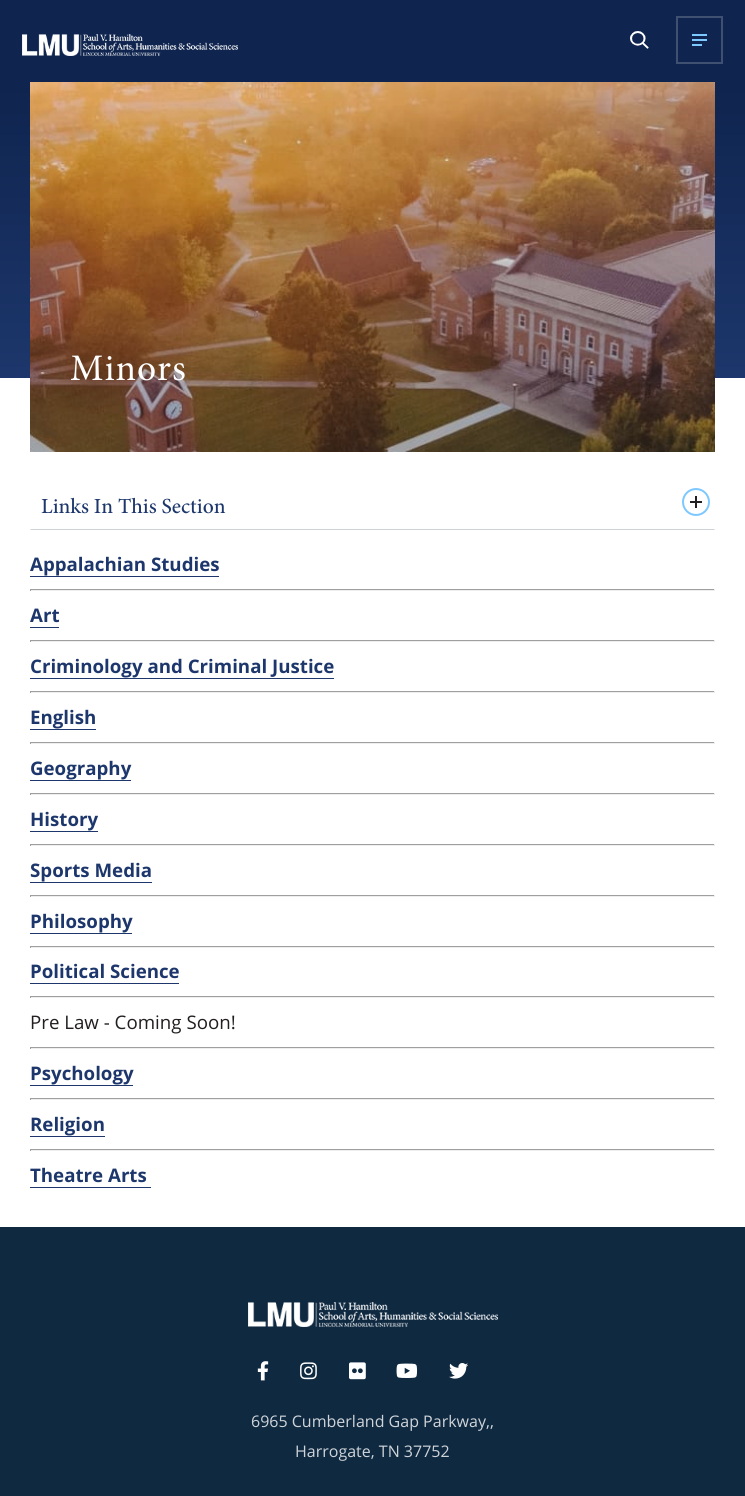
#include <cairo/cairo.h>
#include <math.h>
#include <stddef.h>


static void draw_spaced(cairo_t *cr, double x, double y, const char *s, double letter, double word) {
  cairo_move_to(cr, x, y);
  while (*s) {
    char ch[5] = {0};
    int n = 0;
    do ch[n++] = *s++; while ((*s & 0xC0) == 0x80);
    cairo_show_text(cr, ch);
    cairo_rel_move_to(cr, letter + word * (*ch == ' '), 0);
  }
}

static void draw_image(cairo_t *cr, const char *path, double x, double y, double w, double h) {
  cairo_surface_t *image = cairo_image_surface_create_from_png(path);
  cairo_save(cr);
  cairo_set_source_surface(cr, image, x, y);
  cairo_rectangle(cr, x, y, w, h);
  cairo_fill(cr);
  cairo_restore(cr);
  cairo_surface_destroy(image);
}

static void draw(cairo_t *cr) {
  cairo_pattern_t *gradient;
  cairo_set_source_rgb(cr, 1, 1, 1);
  cairo_paint(cr);
  cairo_set_source_rgb(cr, 15 / 255.0, 36 / 255.0, 78 / 255.0);
  cairo_rectangle(cr, 0, 0, 745, 82);
  cairo_fill(cr);
  draw_image(cr, "images/1.png", 22, 34, 216, 22);
  draw_image(cr, "images/2.png", 630, 31, 19, 18);
  cairo_rectangle(cr, 677, 17, 45, 46);
  cairo_set_source_rgb(cr, 63 / 255.0, 80 / 255.0, 113 / 255.0);
  cairo_stroke(cr);
  cairo_set_source_rgb(cr, 125 / 255.0, 200 / 255.0, 1);
  cairo_rectangle(cr, 692, 34, 15, 2);
  cairo_fill(cr);
  cairo_rectangle(cr, 692, 39, 15, 2);
  cairo_fill(cr);
  cairo_rectangle(cr, 692, 44, 10, 2);
  cairo_fill(cr);
  gradient = cairo_pattern_create_linear(373, 82, 373, 378);
  cairo_pattern_add_color_stop_rgba(gradient, 0, 15 / 255.0, 36 / 255.0, 78 / 255.0, 1);
  cairo_pattern_add_color_stop_rgba(gradient, 1, 29 / 255.0, 55 / 255.0, 108 / 255.0, 1);
  cairo_set_source(cr, gradient);
  cairo_pattern_destroy(gradient);
  cairo_rectangle(cr, 0, 82, 745, 296);
  cairo_fill(cr);
  draw_image(cr, "images/3.png", 30, 82, 685, 370);
  cairo_set_source_rgb(cr, 206 / 255.0, 210 / 255.0, 217 / 255.0);
  cairo_new_path(cr);
  cairo_move_to(cr, 715, 530);
  cairo_line_to(cr, 30, 530);
  cairo_line_to(cr, 31, 529);
  cairo_line_to(cr, 714, 529);
  cairo_close_path(cr);
  cairo_fill(cr);
  cairo_arc(cr, 696, 502, 13, 0, 2 * M_PI);
  cairo_set_source_rgb(cr, 125 / 255.0, 200 / 255.0, 1);
  cairo_stroke(cr);
  cairo_set_source_rgb(cr, 35 / 255.0, 31 / 255.0, 32 / 255.0);
  cairo_rectangle(cr, 695, 496, 2, 12);
  cairo_fill(cr);
  cairo_rectangle(cr, 690, 501, 12, 2);
  cairo_fill(cr);
  cairo_set_source_rgb(cr, 29 / 255.0, 55 / 255.0, 108 / 255.0);
  cairo_rectangle(cr, 30, 576, 189, 1);
  cairo_fill(cr);
  cairo_set_source_rgb(cr, 159 / 255.0, 159 / 255.0, 159 / 255.0);
  cairo_rectangle(cr, 30, 589, 685, 1);
  cairo_fill(cr);
  cairo_set_source_rgb(cr, 238 / 255.0, 238 / 255.0, 238 / 255.0);
  cairo_rectangle(cr, 714, 589, 1, 2);
  cairo_fill(cr);
  cairo_rectangle(cr, 30, 590, 685, 1);
  cairo_fill(cr);
  cairo_set_source_rgb(cr, 159 / 255.0, 159 / 255.0, 159 / 255.0);
  cairo_rectangle(cr, 30, 589, 1, 2);
  cairo_fill(cr);
  cairo_set_source_rgb(cr, 29 / 255.0, 55 / 255.0, 108 / 255.0);
  cairo_rectangle(cr, 30, 627, 29, 1);
  cairo_fill(cr);
  cairo_set_source_rgb(cr, 159 / 255.0, 159 / 255.0, 159 / 255.0);
  cairo_rectangle(cr, 30, 640, 685, 1);
  cairo_fill(cr);
  cairo_set_source_rgb(cr, 238 / 255.0, 238 / 255.0, 238 / 255.0);
  cairo_rectangle(cr, 714, 640, 1, 2);
  cairo_fill(cr);
  cairo_rectangle(cr, 30, 641, 685, 1);
  cairo_fill(cr);
  cairo_set_source_rgb(cr, 159 / 255.0, 159 / 255.0, 159 / 255.0);
  cairo_rectangle(cr, 30, 640, 1, 2);
  cairo_fill(cr);
  cairo_set_source_rgb(cr, 29 / 255.0, 55 / 255.0, 108 / 255.0);
  cairo_rectangle(cr, 30, 678, 304, 1);
  cairo_fill(cr);
  cairo_set_source_rgb(cr, 159 / 255.0, 159 / 255.0, 159 / 255.0);
  cairo_rectangle(cr, 30, 691, 685, 1);
  cairo_fill(cr);
  cairo_set_source_rgb(cr, 238 / 255.0, 238 / 255.0, 238 / 255.0);
  cairo_rectangle(cr, 714, 691, 1, 2);
  cairo_fill(cr);
  cairo_rectangle(cr, 30, 692, 685, 1);
  cairo_fill(cr);
  cairo_set_source_rgb(cr, 159 / 255.0, 159 / 255.0, 159 / 255.0);
  cairo_rectangle(cr, 30, 691, 1, 2);
  cairo_fill(cr);
  cairo_set_source_rgb(cr, 29 / 255.0, 55 / 255.0, 108 / 255.0);
  cairo_rectangle(cr, 30, 729, 66, 1);
  cairo_fill(cr);
  cairo_set_source_rgb(cr, 159 / 255.0, 159 / 255.0, 159 / 255.0);
  cairo_rectangle(cr, 30, 742, 685, 1);
  cairo_fill(cr);
  cairo_set_source_rgb(cr, 238 / 255.0, 238 / 255.0, 238 / 255.0);
  cairo_rectangle(cr, 714, 742, 1, 2);
  cairo_fill(cr);
  cairo_rectangle(cr, 30, 743, 685, 1);
  cairo_fill(cr);
  cairo_set_source_rgb(cr, 159 / 255.0, 159 / 255.0, 159 / 255.0);
  cairo_rectangle(cr, 30, 742, 1, 2);
  cairo_fill(cr);
  cairo_set_source_rgb(cr, 29 / 255.0, 55 / 255.0, 108 / 255.0);
  cairo_rectangle(cr, 30, 780, 101, 1);
  cairo_fill(cr);
  cairo_set_source_rgb(cr, 159 / 255.0, 159 / 255.0, 159 / 255.0);
  cairo_rectangle(cr, 30, 793, 685, 1);
  cairo_fill(cr);
  cairo_set_source_rgb(cr, 238 / 255.0, 238 / 255.0, 238 / 255.0);
  cairo_rectangle(cr, 714, 793, 1, 2);
  cairo_fill(cr);
  cairo_rectangle(cr, 30, 794, 685, 1);
  cairo_fill(cr);
  cairo_set_source_rgb(cr, 159 / 255.0, 159 / 255.0, 159 / 255.0);
  cairo_rectangle(cr, 30, 793, 1, 2);
  cairo_fill(cr);
  cairo_set_source_rgb(cr, 29 / 255.0, 55 / 255.0, 108 / 255.0);
  cairo_rectangle(cr, 30, 831, 68, 1);
  cairo_fill(cr);
  cairo_set_source_rgb(cr, 159 / 255.0, 159 / 255.0, 159 / 255.0);
  cairo_rectangle(cr, 30, 844, 685, 1);
  cairo_fill(cr);
  cairo_set_source_rgb(cr, 238 / 255.0, 238 / 255.0, 238 / 255.0);
  cairo_rectangle(cr, 714, 844, 1, 2);
  cairo_fill(cr);
  cairo_rectangle(cr, 30, 845, 685, 1);
  cairo_fill(cr);
  cairo_set_source_rgb(cr, 159 / 255.0, 159 / 255.0, 159 / 255.0);
  cairo_rectangle(cr, 30, 844, 1, 2);
  cairo_fill(cr);
  cairo_set_source_rgb(cr, 29 / 255.0, 55 / 255.0, 108 / 255.0);
  cairo_rectangle(cr, 30, 882, 122, 1);
  cairo_fill(cr);
  cairo_set_source_rgb(cr, 159 / 255.0, 159 / 255.0, 159 / 255.0);
  cairo_rectangle(cr, 30, 895, 685, 1);
  cairo_fill(cr);
  cairo_set_source_rgb(cr, 238 / 255.0, 238 / 255.0, 238 / 255.0);
  cairo_rectangle(cr, 714, 895, 1, 2);
  cairo_fill(cr);
  cairo_rectangle(cr, 30, 896, 685, 1);
  cairo_fill(cr);
  cairo_set_source_rgb(cr, 159 / 255.0, 159 / 255.0, 159 / 255.0);
  cairo_rectangle(cr, 30, 895, 1, 2);
  cairo_fill(cr);
  cairo_set_source_rgb(cr, 29 / 255.0, 55 / 255.0, 108 / 255.0);
  cairo_rectangle(cr, 30, 933, 102, 1);
  cairo_fill(cr);
  cairo_set_source_rgb(cr, 159 / 255.0, 159 / 255.0, 159 / 255.0);
  cairo_rectangle(cr, 30, 946, 685, 1);
  cairo_fill(cr);
  cairo_set_source_rgb(cr, 238 / 255.0, 238 / 255.0, 238 / 255.0);
  cairo_rectangle(cr, 714, 946, 1, 2);
  cairo_fill(cr);
  cairo_rectangle(cr, 30, 947, 685, 1);
  cairo_fill(cr);
  cairo_set_source_rgb(cr, 159 / 255.0, 159 / 255.0, 159 / 255.0);
  cairo_rectangle(cr, 30, 946, 1, 2);
  cairo_fill(cr);
  cairo_set_source_rgb(cr, 29 / 255.0, 55 / 255.0, 108 / 255.0);
  cairo_rectangle(cr, 30, 983, 149, 1);
  cairo_fill(cr);
  cairo_set_source_rgb(cr, 159 / 255.0, 159 / 255.0, 159 / 255.0);
  cairo_rectangle(cr, 30, 996, 685, 1);
  cairo_fill(cr);
  cairo_set_source_rgb(cr, 238 / 255.0, 238 / 255.0, 238 / 255.0);
  cairo_rectangle(cr, 714, 996, 1, 2);
  cairo_fill(cr);
  cairo_rectangle(cr, 30, 997, 685, 1);
  cairo_fill(cr);
  cairo_set_source_rgb(cr, 159 / 255.0, 159 / 255.0, 159 / 255.0);
  cairo_rectangle(cr, 30, 996, 1, 2);
  cairo_fill(cr);
  cairo_rectangle(cr, 30, 1047, 685, 1);
  cairo_fill(cr);
  cairo_set_source_rgb(cr, 238 / 255.0, 238 / 255.0, 238 / 255.0);
  cairo_rectangle(cr, 714, 1047, 1, 2);
  cairo_fill(cr);
  cairo_rectangle(cr, 30, 1048, 685, 1);
  cairo_fill(cr);
  cairo_set_source_rgb(cr, 159 / 255.0, 159 / 255.0, 159 / 255.0);
  cairo_rectangle(cr, 30, 1047, 1, 2);
  cairo_fill(cr);
  cairo_set_source_rgb(cr, 29 / 255.0, 55 / 255.0, 108 / 255.0);
  cairo_rectangle(cr, 30, 1085, 103, 1);
  cairo_fill(cr);
  cairo_set_source_rgb(cr, 159 / 255.0, 159 / 255.0, 159 / 255.0);
  cairo_rectangle(cr, 30, 1098, 685, 1);
  cairo_fill(cr);
  cairo_set_source_rgb(cr, 238 / 255.0, 238 / 255.0, 238 / 255.0);
  cairo_rectangle(cr, 714, 1098, 1, 2);
  cairo_fill(cr);
  cairo_rectangle(cr, 30, 1099, 685, 1);
  cairo_fill(cr);
  cairo_set_source_rgb(cr, 159 / 255.0, 159 / 255.0, 159 / 255.0);
  cairo_rectangle(cr, 30, 1098, 1, 2);
  cairo_fill(cr);
  cairo_set_source_rgb(cr, 29 / 255.0, 55 / 255.0, 108 / 255.0);
  cairo_rectangle(cr, 30, 1136, 75, 1);
  cairo_fill(cr);
  cairo_set_source_rgb(cr, 159 / 255.0, 159 / 255.0, 159 / 255.0);
  cairo_rectangle(cr, 30, 1149, 685, 1);
  cairo_fill(cr);
  cairo_set_source_rgb(cr, 238 / 255.0, 238 / 255.0, 238 / 255.0);
  cairo_rectangle(cr, 714, 1149, 1, 2);
  cairo_fill(cr);
  cairo_rectangle(cr, 30, 1150, 685, 1);
  cairo_fill(cr);
  cairo_set_source_rgb(cr, 159 / 255.0, 159 / 255.0, 159 / 255.0);
  cairo_rectangle(cr, 30, 1149, 1, 2);
  cairo_fill(cr);
  cairo_set_source_rgb(cr, 29 / 255.0, 55 / 255.0, 108 / 255.0);
  cairo_rectangle(cr, 30, 1187, 121, 1);
  cairo_fill(cr);
  cairo_set_source_rgb(cr, 15 / 255.0, 41 / 255.0, 65 / 255.0);
  cairo_rectangle(cr, 0, 1227, 745, 269);
  cairo_fill(cr);
  draw_image(cr, "images/4.png", 248, 1302, 250, 25);
  draw_image(cr, "images/5.png", 257, 1361, 12, 20);
  draw_image(cr, "images/6.png", 300, 1362, 17, 18);
  draw_image(cr, "images/7.png", 349, 1362, 17, 18);
  draw_image(cr, "images/8.png", 396, 1363, 22, 15);
  draw_image(cr, "images/9.png", 449, 1363, 19, 16);
  cairo_select_font_face(cr, "Minion", CAIRO_FONT_SLANT_NORMAL, CAIRO_FONT_WEIGHT_NORMAL);
  cairo_set_font_size(cr, 37.5);
  cairo_set_source_rgb(cr, 1, 1, 1);
  draw_spaced(cr, 70, 380, "Minors", 1, 0);
  cairo_select_font_face(cr, "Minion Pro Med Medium", CAIRO_FONT_SLANT_NORMAL, CAIRO_FONT_WEIGHT_NORMAL);
  cairo_set_font_size(cr, 21.5);
  cairo_set_source_rgb(cr, 29 / 255.0, 55 / 255.0, 108 / 255.0);
  cairo_move_to(cr, 41, 513);
  cairo_show_text(cr, "Links In This Section");
  cairo_select_font_face(cr, "Open Sans", CAIRO_FONT_SLANT_NORMAL, CAIRO_FONT_WEIGHT_BOLD);
  cairo_set_font_size(cr, 18.7);
  cairo_move_to(cr, 30, 571);
  cairo_show_text(cr, "Appalachian Studies");
  cairo_move_to(cr, 30, 622);
  cairo_show_text(cr, "Art");
  cairo_move_to(cr, 30, 673);
  cairo_show_text(cr, "Criminology and Criminal Justice");
  cairo_move_to(cr, 30, 724);
  cairo_show_text(cr, "English");
  cairo_move_to(cr, 30, 775);
  cairo_show_text(cr, "Geography");
  cairo_move_to(cr, 30, 826);
  cairo_show_text(cr, "History");
  cairo_move_to(cr, 30, 877);
  cairo_show_text(cr, "Sports Media");
  cairo_move_to(cr, 30, 928);
  cairo_show_text(cr, "Philosophy");
  cairo_move_to(cr, 30, 978);
  cairo_show_text(cr, "Political Science");
  cairo_select_font_face(cr, "Open Sans", CAIRO_FONT_SLANT_NORMAL, CAIRO_FONT_WEIGHT_NORMAL);
  cairo_set_source_rgb(cr, 35 / 255.0, 31 / 255.0, 32 / 255.0);
  cairo_move_to(cr, 30, 1029);
  cairo_show_text(cr, "Pre Law - Coming Soon!");
  cairo_select_font_face(cr, "Open Sans", CAIRO_FONT_SLANT_NORMAL, CAIRO_FONT_WEIGHT_BOLD);
  cairo_set_source_rgb(cr, 29 / 255.0, 55 / 255.0, 108 / 255.0);
  cairo_move_to(cr, 30, 1080);
  cairo_show_text(cr, "Psychology");
  cairo_move_to(cr, 30, 1131);
  cairo_show_text(cr, "Religion");
  cairo_move_to(cr, 30, 1182);
  cairo_show_text(cr, "Theatre Arts");
  cairo_select_font_face(cr, "Open Sans", CAIRO_FONT_SLANT_NORMAL, CAIRO_FONT_WEIGHT_NORMAL);
  cairo_set_font_size(cr, 16);
  cairo_set_source_rgb(cr, 207 / 255.0, 212 / 255.0, 217 / 255.0);
  cairo_move_to(cr, 251, 1427);
  cairo_show_text(cr, "6965 Cumberland Gap Parkway,,");
  cairo_move_to(cr, 295, 1457);
  cairo_show_text(cr, "Harrogate, TN 37752");
}

int main(void) {
  cairo_surface_t *surface = cairo_image_surface_create(CAIRO_FORMAT_RGB24, 745, 1496);
  cairo_t *cr = cairo_create(surface);
  cairo_font_options_t *options = cairo_font_options_create();
  cairo_font_options_set_hint_metrics(options, CAIRO_HINT_METRICS_OFF);
  cairo_font_options_set_hint_style(options, CAIRO_HINT_STYLE_NONE);
  cairo_set_font_options(cr, options);
  cairo_set_miter_limit(cr, 4);
  draw(cr);
  cairo_surface_write_to_png(surface, "out.png");
  cairo_font_options_destroy(options);
  cairo_destroy(cr);
  cairo_surface_destroy(surface);
  return 0;
}
